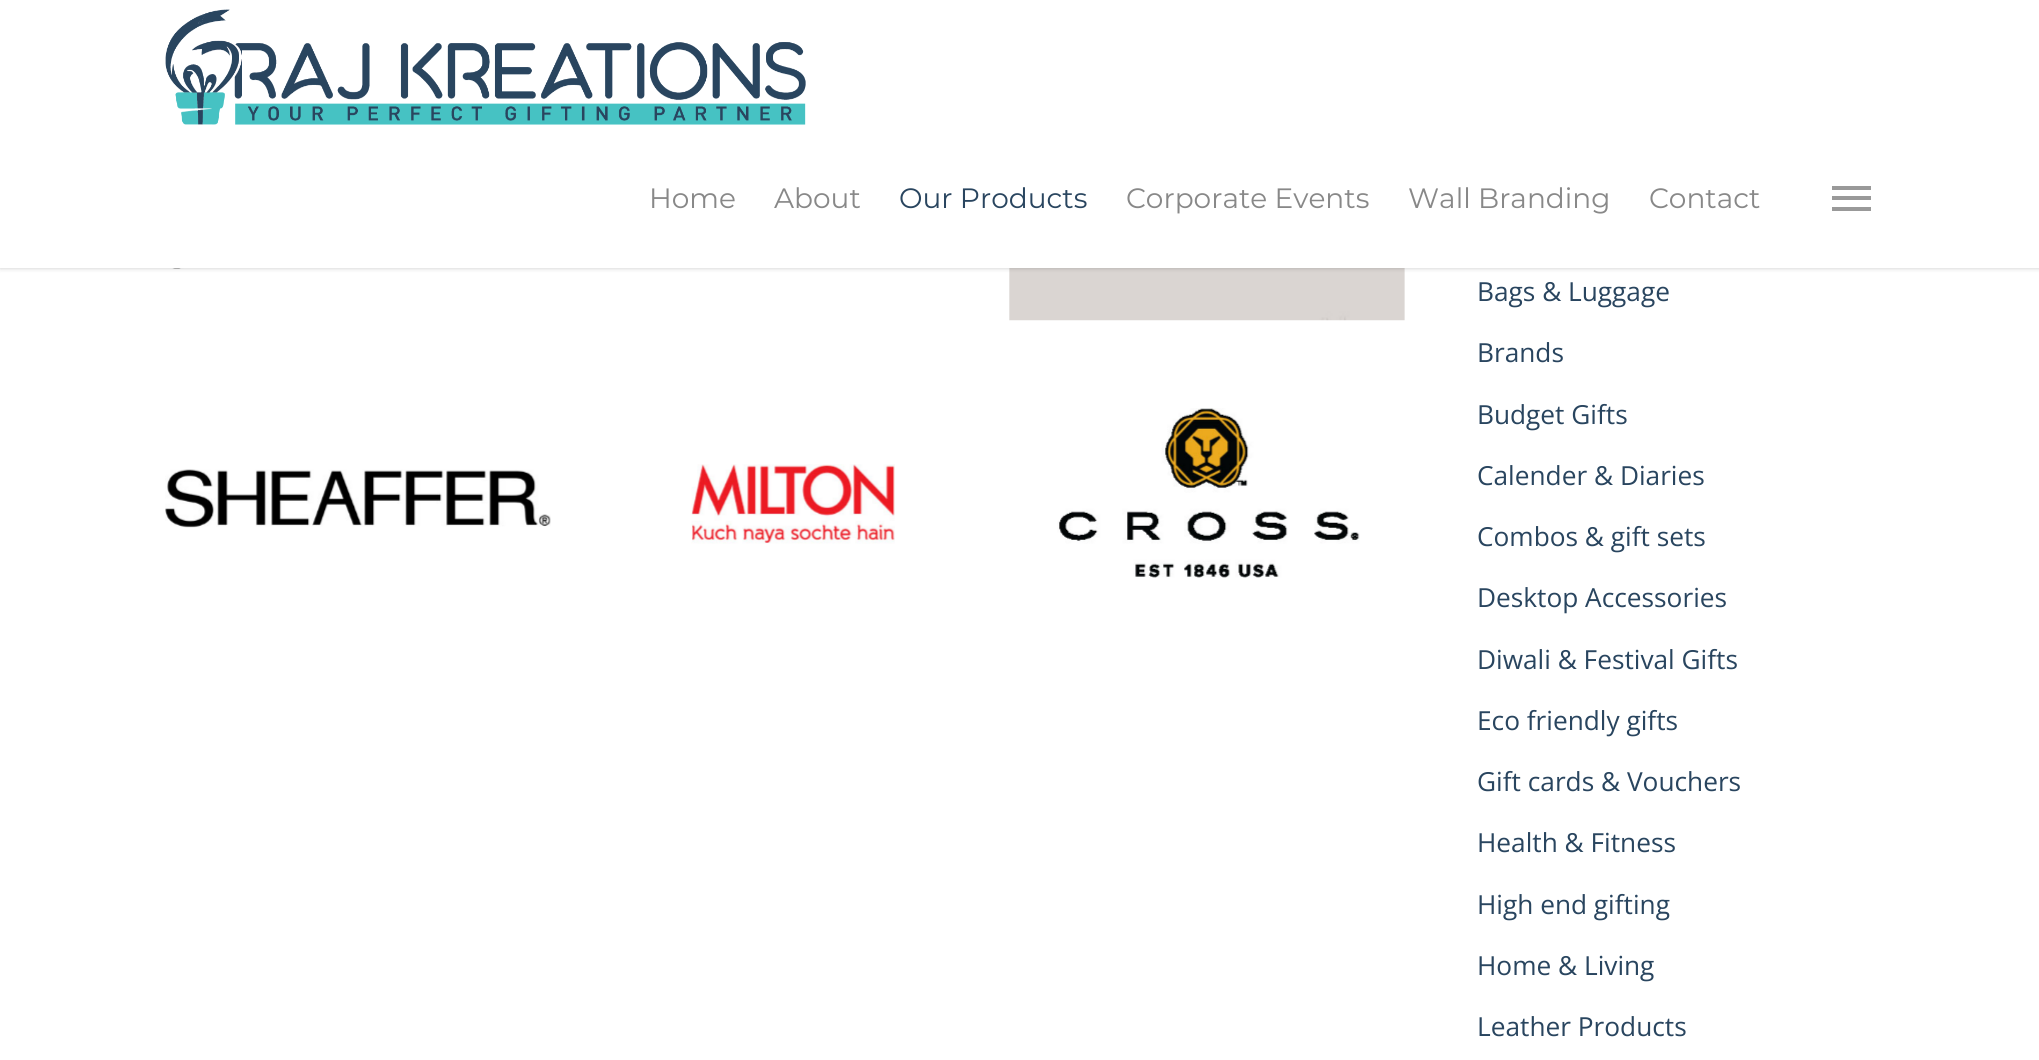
#include <cairo/cairo.h>
#include <math.h>
#include <stddef.h>


static void rounded_rect(cairo_t *cr, double x, double y, double w, double h, double r) {
  cairo_new_sub_path(cr);
  cairo_arc(cr, x + w - r, y + h - r, r, 0, M_PI / 2);
  cairo_arc(cr, x + r, y + h - r, r, M_PI / 2, M_PI);
  cairo_arc(cr, x + r, y + r, r, M_PI, 1.5 * M_PI);
  cairo_arc(cr, x + w - r, y + r, r, 1.5 * M_PI, 2 * M_PI);
  cairo_close_path(cr);
}

static void draw_shadow(cairo_t *cr, double x, double y, double w, double h, double r, double blur, double alpha) {
  cairo_push_group_with_content(cr, CAIRO_CONTENT_ALPHA);
  cairo_set_operator(cr, CAIRO_OPERATOR_SOURCE);
  for (int i = 15; i >= -15 && fmin(w, h) + blur * i / 3 > 0; i -= 2) {
    double e = blur * i / 6;
    cairo_set_source_rgba(cr, 0, 0, 0, alpha * erfc((i - 1) / 8.5) / 2);
    rounded_rect(cr, x - e, y - e, w + 2 * e, h + 2 * e, fmax(0, fmin(r + e + blur * .6, fmin(w, h) / 2 + e)));
    cairo_fill(cr);
  }
  cairo_pattern_t *soft = cairo_pop_group(cr);
  cairo_mask(cr, soft);
  cairo_pattern_destroy(soft);
}

static void draw_image(cairo_t *cr, const char *path, double x, double y, double w, double h) {
  cairo_surface_t *image = cairo_image_surface_create_from_png(path);
  cairo_save(cr);
  cairo_set_source_surface(cr, image, x, y);
  cairo_rectangle(cr, x, y, w, h);
  cairo_fill(cr);
  cairo_restore(cr);
  cairo_surface_destroy(image);
}

static void draw(cairo_t *cr) {
  cairo_set_source_rgb(cr, 1, 1, 1);
  cairo_paint(cr);
  draw_image(cr, "images/2.png", 172, 268, 374, 1);
  draw_image(cr, "images/3.png", 1009, 268, 396, 53);
  cairo_set_source_rgb(cr, 0, 0, 0);
  draw_shadow(cr, 0, 0, 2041, 268, 0, 2.5, 0.22);
  cairo_set_source_rgb(cr, 1, 1, 1);
  cairo_rectangle(cr, 0, 0, 2039, 268);
  cairo_fill(cr);
  draw_image(cr, "images/1.png", 165, 9, 641, 116);
  cairo_set_source_rgb(cr, 153 / 255.0, 153 / 255.0, 153 / 255.0);
  cairo_rectangle(cr, 1832, 186, 39, 4);
  cairo_fill(cr);
  cairo_rectangle(cr, 1832, 207, 39, 4);
  cairo_fill(cr);
  cairo_rectangle(cr, 1832, 196, 39, 4);
  cairo_fill(cr);
  draw_image(cr, "images/4.png", 165, 469, 386, 59);
  draw_image(cr, "images/5.png", 691, 464, 204, 80);
  draw_image(cr, "images/6.png", 1057, 408, 303, 170);
  cairo_select_font_face(cr, "Montserrat Thin", CAIRO_FONT_SLANT_NORMAL, CAIRO_FONT_WEIGHT_NORMAL);
  cairo_set_font_size(cr, 28);
  cairo_set_source_rgb(cr, 136 / 255.0, 136 / 255.0, 136 / 255.0);
  cairo_move_to(cr, 649, 208);
  cairo_show_text(cr, "Home");
  cairo_move_to(cr, 774, 208);
  cairo_show_text(cr, "About");
  cairo_set_source_rgb(cr, 41 / 255.0, 69 / 255.0, 95 / 255.0);
  cairo_move_to(cr, 899, 208);
  cairo_show_text(cr, "Our Products");
  cairo_set_source_rgb(cr, 136 / 255.0, 136 / 255.0, 136 / 255.0);
  cairo_move_to(cr, 1126, 208);
  cairo_show_text(cr, "Corporate Events");
  cairo_move_to(cr, 1408, 208);
  cairo_show_text(cr, "Wall Branding");
  cairo_move_to(cr, 1649, 208);
  cairo_show_text(cr, "Contact");
  cairo_select_font_face(cr, "Open Sans", CAIRO_FONT_SLANT_NORMAL, CAIRO_FONT_WEIGHT_NORMAL);
  cairo_set_font_size(cr, 26.25);
  cairo_set_source_rgb(cr, 41 / 255.0, 69 / 255.0, 95 / 255.0);
  cairo_move_to(cr, 1477, 301);
  cairo_show_text(cr, "Bags & Luggage");
  cairo_move_to(cr, 1477, 362);
  cairo_show_text(cr, "Brands");
  cairo_move_to(cr, 1477, 424);
  cairo_show_text(cr, "Budget Gifts");
  cairo_move_to(cr, 1477, 485);
  cairo_show_text(cr, "Calender & Diaries");
  cairo_move_to(cr, 1477, 546);
  cairo_show_text(cr, "Combos & gift sets");
  cairo_move_to(cr, 1477, 607);
  cairo_show_text(cr, "Desktop Accessories");
  cairo_move_to(cr, 1477, 669);
  cairo_show_text(cr, "Diwali & Festival Gifts");
  cairo_move_to(cr, 1477, 730);
  cairo_show_text(cr, "Eco friendly gifts");
  cairo_move_to(cr, 1477, 791);
  cairo_show_text(cr, "Gift cards & Vouchers");
  cairo_move_to(cr, 1477, 852);
  cairo_show_text(cr, "Health & Fitness");
  cairo_move_to(cr, 1477, 914);
  cairo_show_text(cr, "High end gifting");
  cairo_move_to(cr, 1477, 975);
  cairo_show_text(cr, "Home & Living");
  cairo_move_to(cr, 1477, 1036);
  cairo_show_text(cr, "Leather Products");
}

int main(void) {
  cairo_surface_t *surface = cairo_image_surface_create(CAIRO_FORMAT_RGB24, 2039, 1060);
  cairo_t *cr = cairo_create(surface);
  cairo_font_options_t *options = cairo_font_options_create();
  cairo_font_options_set_hint_metrics(options, CAIRO_HINT_METRICS_OFF);
  cairo_font_options_set_hint_style(options, CAIRO_HINT_STYLE_NONE);
  cairo_set_font_options(cr, options);
  cairo_set_miter_limit(cr, 4);
  draw(cr);
  cairo_surface_write_to_png(surface, "out.png");
  cairo_font_options_destroy(options);
  cairo_destroy(cr);
  cairo_surface_destroy(surface);
  return 0;
}
